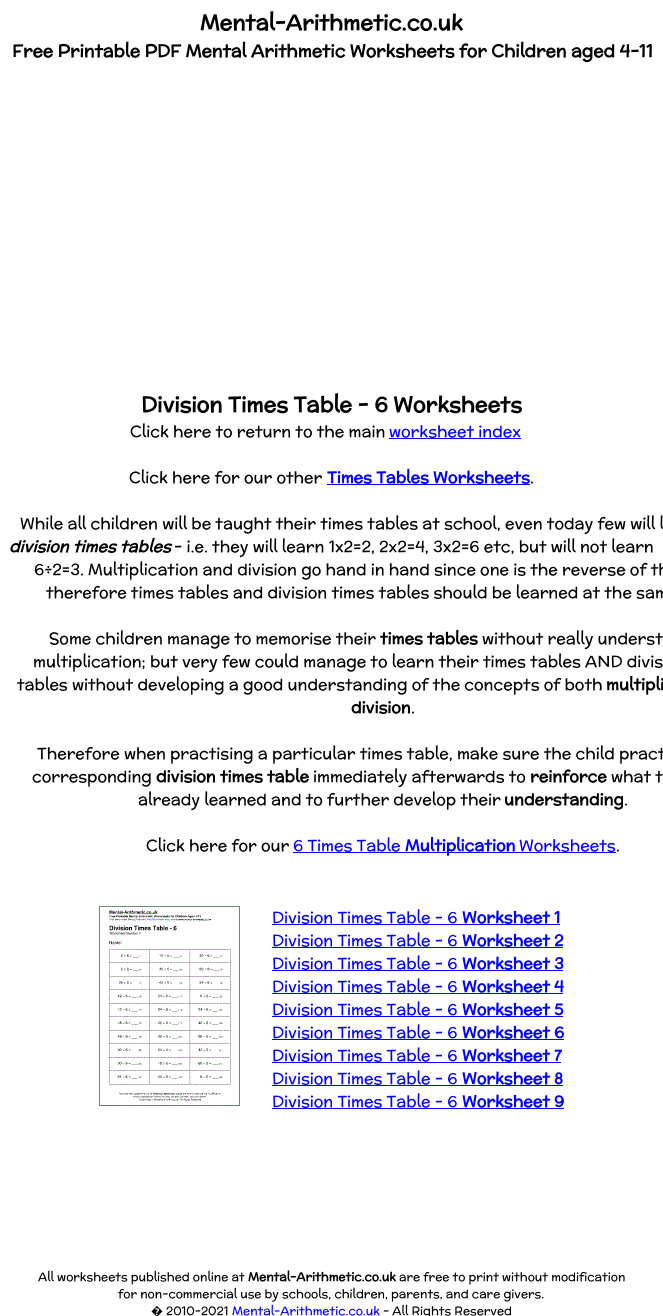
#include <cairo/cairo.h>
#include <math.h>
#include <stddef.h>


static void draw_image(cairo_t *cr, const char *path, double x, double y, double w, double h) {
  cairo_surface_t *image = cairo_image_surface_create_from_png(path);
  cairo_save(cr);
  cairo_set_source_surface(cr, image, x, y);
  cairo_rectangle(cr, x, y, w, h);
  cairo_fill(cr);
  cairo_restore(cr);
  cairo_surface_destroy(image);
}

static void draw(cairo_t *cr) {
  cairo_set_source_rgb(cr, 1, 1, 1);
  cairo_paint(cr);
  cairo_set_source_rgb(cr, 0, 0, 1);
  cairo_rectangle(cr, 389, 438, 132, 1);
  cairo_fill(cr);
  cairo_rectangle(cr, 327, 484, 203, 1);
  cairo_fill(cr);
  cairo_rectangle(cr, 293, 852, 323, 1);
  cairo_fill(cr);
  draw_image(cr, "images/1.png", 99, 906, 141, 200);
  cairo_rectangle(cr, 272, 924, 288, 1);
  cairo_fill(cr);
  cairo_rectangle(cr, 272, 947, 291, 1);
  cairo_fill(cr);
  cairo_rectangle(cr, 272, 970, 291, 1);
  cairo_fill(cr);
  cairo_rectangle(cr, 272, 993, 291, 1);
  cairo_fill(cr);
  cairo_rectangle(cr, 272, 1016, 291, 1);
  cairo_fill(cr);
  cairo_rectangle(cr, 272, 1039, 292, 1);
  cairo_fill(cr);
  cairo_rectangle(cr, 272, 1062, 289, 1);
  cairo_fill(cr);
  cairo_rectangle(cr, 272, 1085, 291, 1);
  cairo_fill(cr);
  cairo_rectangle(cr, 272, 1108, 292, 1);
  cairo_fill(cr);
  cairo_select_font_face(cr, "McLaren", CAIRO_FONT_SLANT_NORMAL, CAIRO_FONT_WEIGHT_BOLD);
  cairo_set_font_size(cr, 21.3);
  cairo_set_source_rgb(cr, 0, 0, 0);
  cairo_move_to(cr, 200, 30);
  cairo_show_text(cr, "Mental-Arithmetic.co.uk");
  cairo_set_font_size(cr, 17.35);
  cairo_move_to(cr, 12, 57);
  cairo_show_text(cr, "Free Printable PDF Mental Arithmetic Worksheets for Children aged 4-11");
  cairo_set_font_size(cr, 21.3);
  cairo_move_to(cr, 141, 412);
  cairo_show_text(cr, "Division Times Table - 6 Worksheets");
  cairo_select_font_face(cr, "McLaren", CAIRO_FONT_SLANT_NORMAL, CAIRO_FONT_WEIGHT_NORMAL);
  cairo_set_font_size(cr, 16);
  cairo_move_to(cr, 130, 437);
  cairo_show_text(cr, "Click here to return to the main");
  cairo_set_source_rgb(cr, 0, 0, 1);
  cairo_move_to(cr, 389, 437);
  cairo_show_text(cr, "worksheet index");
  cairo_set_source_rgb(cr, 0, 0, 0);
  cairo_move_to(cr, 129, 483);
  cairo_show_text(cr, "Click here for our other");
  cairo_select_font_face(cr, "McLaren", CAIRO_FONT_SLANT_NORMAL, CAIRO_FONT_WEIGHT_BOLD);
  cairo_set_source_rgb(cr, 0, 0, 1);
  cairo_move_to(cr, 327, 483);
  cairo_show_text(cr, "Times Tables Worksheets");
  cairo_select_font_face(cr, "McLaren", CAIRO_FONT_SLANT_NORMAL, CAIRO_FONT_WEIGHT_NORMAL);
  cairo_set_source_rgb(cr, 0, 0, 0);
  cairo_move_to(cr, 530, 483);
  cairo_show_text(cr, ".");
  cairo_move_to(cr, 20, 529);
  cairo_show_text(cr, "While all children will be taught their times tables at school, even today few will l");
  cairo_select_font_face(cr, "McLaren", CAIRO_FONT_SLANT_ITALIC, CAIRO_FONT_WEIGHT_BOLD);
  cairo_move_to(cr, 9, 552);
  cairo_show_text(cr, "division times tables");
  cairo_select_font_face(cr, "McLaren", CAIRO_FONT_SLANT_NORMAL, CAIRO_FONT_WEIGHT_NORMAL);
  cairo_move_to(cr, 174, 552);
  cairo_show_text(cr, "- i.e. they will learn 1x2=2, 2x2=4, 3x2=6 etc, but will not learn");
  cairo_move_to(cr, 34, 575);
  cairo_show_text(cr, "6÷2=3. Multiplication and division go hand in hand since one is the reverse of th");
  cairo_move_to(cr, 46, 598);
  cairo_show_text(cr, "therefore times tables and division times tables should be learned at the sam");
  cairo_move_to(cr, 49, 644);
  cairo_show_text(cr, "Some children manage to memorise their");
  cairo_select_font_face(cr, "McLaren", CAIRO_FONT_SLANT_NORMAL, CAIRO_FONT_WEIGHT_BOLD);
  cairo_move_to(cr, 380, 644);
  cairo_show_text(cr, "times tables");
  cairo_select_font_face(cr, "McLaren", CAIRO_FONT_SLANT_NORMAL, CAIRO_FONT_WEIGHT_NORMAL);
  cairo_move_to(cr, 482, 644);
  cairo_show_text(cr, "without really underst");
  cairo_move_to(cr, 33, 667);
  cairo_show_text(cr, "multiplication; but very few could manage to learn their times tables AND divis");
  cairo_move_to(cr, 17, 690);
  cairo_show_text(cr, "tables without developing a good understanding of the concepts of both");
  cairo_select_font_face(cr, "McLaren", CAIRO_FONT_SLANT_NORMAL, CAIRO_FONT_WEIGHT_BOLD);
  cairo_move_to(cr, 606, 690);
  cairo_show_text(cr, "multipli");
  cairo_move_to(cr, 351, 713);
  cairo_show_text(cr, "division");
  cairo_select_font_face(cr, "McLaren", CAIRO_FONT_SLANT_NORMAL, CAIRO_FONT_WEIGHT_NORMAL);
  cairo_move_to(cr, 411, 713);
  cairo_show_text(cr, ".");
  cairo_move_to(cr, 37, 759);
  cairo_show_text(cr, "Therefore when practising a particular times table, make sure the child pract");
  cairo_move_to(cr, 32, 782);
  cairo_show_text(cr, "corresponding");
  cairo_select_font_face(cr, "McLaren", CAIRO_FONT_SLANT_NORMAL, CAIRO_FONT_WEIGHT_BOLD);
  cairo_move_to(cr, 156, 782);
  cairo_show_text(cr, "division times table");
  cairo_select_font_face(cr, "McLaren", CAIRO_FONT_SLANT_NORMAL, CAIRO_FONT_WEIGHT_NORMAL);
  cairo_move_to(cr, 313, 782);
  cairo_show_text(cr, "immediately afterwards to");
  cairo_select_font_face(cr, "McLaren", CAIRO_FONT_SLANT_NORMAL, CAIRO_FONT_WEIGHT_BOLD);
  cairo_move_to(cr, 530, 782);
  cairo_show_text(cr, "reinforce");
  cairo_select_font_face(cr, "McLaren", CAIRO_FONT_SLANT_NORMAL, CAIRO_FONT_WEIGHT_NORMAL);
  cairo_move_to(cr, 611, 782);
  cairo_show_text(cr, "what t");
  cairo_move_to(cr, 138, 805);
  cairo_show_text(cr, "already learned and to further develop their");
  cairo_select_font_face(cr, "McLaren", CAIRO_FONT_SLANT_NORMAL, CAIRO_FONT_WEIGHT_BOLD);
  cairo_move_to(cr, 504, 805);
  cairo_show_text(cr, "understanding");
  cairo_select_font_face(cr, "McLaren", CAIRO_FONT_SLANT_NORMAL, CAIRO_FONT_WEIGHT_NORMAL);
  cairo_move_to(cr, 624, 805);
  cairo_show_text(cr, ".");
  cairo_move_to(cr, 146, 851);
  cairo_show_text(cr, "Click here for our");
  cairo_set_source_rgb(cr, 0, 0, 1);
  cairo_move_to(cr, 293, 851);
  cairo_show_text(cr, "6 Times Table");
  cairo_select_font_face(cr, "McLaren", CAIRO_FONT_SLANT_NORMAL, CAIRO_FONT_WEIGHT_BOLD);
  cairo_move_to(cr, 405, 851);
  cairo_show_text(cr, "Multiplication");
  cairo_select_font_face(cr, "McLaren", CAIRO_FONT_SLANT_NORMAL, CAIRO_FONT_WEIGHT_NORMAL);
  cairo_move_to(cr, 519, 851);
  cairo_show_text(cr, "Worksheets");
  cairo_set_source_rgb(cr, 0, 0, 0);
  cairo_move_to(cr, 616, 851);
  cairo_show_text(cr, ".");
  cairo_set_source_rgb(cr, 0, 0, 1);
  cairo_move_to(cr, 272, 923);
  cairo_show_text(cr, "Division Times Table - 6");
  cairo_select_font_face(cr, "McLaren", CAIRO_FONT_SLANT_NORMAL, CAIRO_FONT_WEIGHT_BOLD);
  cairo_move_to(cr, 462, 923);
  cairo_show_text(cr, "Worksheet 1");
  cairo_select_font_face(cr, "McLaren", CAIRO_FONT_SLANT_NORMAL, CAIRO_FONT_WEIGHT_NORMAL);
  cairo_move_to(cr, 272, 946);
  cairo_show_text(cr, "Division Times Table - 6");
  cairo_select_font_face(cr, "McLaren", CAIRO_FONT_SLANT_NORMAL, CAIRO_FONT_WEIGHT_BOLD);
  cairo_move_to(cr, 462, 946);
  cairo_show_text(cr, "Worksheet 2");
  cairo_select_font_face(cr, "McLaren", CAIRO_FONT_SLANT_NORMAL, CAIRO_FONT_WEIGHT_NORMAL);
  cairo_move_to(cr, 272, 969);
  cairo_show_text(cr, "Division Times Table - 6");
  cairo_select_font_face(cr, "McLaren", CAIRO_FONT_SLANT_NORMAL, CAIRO_FONT_WEIGHT_BOLD);
  cairo_move_to(cr, 462, 969);
  cairo_show_text(cr, "Worksheet 3");
  cairo_select_font_face(cr, "McLaren", CAIRO_FONT_SLANT_NORMAL, CAIRO_FONT_WEIGHT_NORMAL);
  cairo_move_to(cr, 272, 992);
  cairo_show_text(cr, "Division Times Table - 6");
  cairo_select_font_face(cr, "McLaren", CAIRO_FONT_SLANT_NORMAL, CAIRO_FONT_WEIGHT_BOLD);
  cairo_move_to(cr, 462, 992);
  cairo_show_text(cr, "Worksheet 4");
  cairo_select_font_face(cr, "McLaren", CAIRO_FONT_SLANT_NORMAL, CAIRO_FONT_WEIGHT_NORMAL);
  cairo_move_to(cr, 272, 1015);
  cairo_show_text(cr, "Division Times Table - 6");
  cairo_select_font_face(cr, "McLaren", CAIRO_FONT_SLANT_NORMAL, CAIRO_FONT_WEIGHT_BOLD);
  cairo_move_to(cr, 462, 1015);
  cairo_show_text(cr, "Worksheet 5");
  cairo_select_font_face(cr, "McLaren", CAIRO_FONT_SLANT_NORMAL, CAIRO_FONT_WEIGHT_NORMAL);
  cairo_move_to(cr, 272, 1038);
  cairo_show_text(cr, "Division Times Table - 6");
  cairo_select_font_face(cr, "McLaren", CAIRO_FONT_SLANT_NORMAL, CAIRO_FONT_WEIGHT_BOLD);
  cairo_move_to(cr, 462, 1038);
  cairo_show_text(cr, "Worksheet 6");
  cairo_select_font_face(cr, "McLaren", CAIRO_FONT_SLANT_NORMAL, CAIRO_FONT_WEIGHT_NORMAL);
  cairo_move_to(cr, 272, 1061);
  cairo_show_text(cr, "Division Times Table - 6");
  cairo_select_font_face(cr, "McLaren", CAIRO_FONT_SLANT_NORMAL, CAIRO_FONT_WEIGHT_BOLD);
  cairo_move_to(cr, 462, 1061);
  cairo_show_text(cr, "Worksheet 7");
  cairo_select_font_face(cr, "McLaren", CAIRO_FONT_SLANT_NORMAL, CAIRO_FONT_WEIGHT_NORMAL);
  cairo_move_to(cr, 272, 1084);
  cairo_show_text(cr, "Division Times Table - 6");
  cairo_select_font_face(cr, "McLaren", CAIRO_FONT_SLANT_NORMAL, CAIRO_FONT_WEIGHT_BOLD);
  cairo_move_to(cr, 462, 1084);
  cairo_show_text(cr, "Worksheet 8");
  cairo_select_font_face(cr, "McLaren", CAIRO_FONT_SLANT_NORMAL, CAIRO_FONT_WEIGHT_NORMAL);
  cairo_move_to(cr, 272, 1107);
  cairo_show_text(cr, "Division Times Table - 6");
  cairo_select_font_face(cr, "McLaren", CAIRO_FONT_SLANT_NORMAL, CAIRO_FONT_WEIGHT_BOLD);
  cairo_move_to(cr, 462, 1107);
  cairo_show_text(cr, "Worksheet 9");
  cairo_select_font_face(cr, "McLaren", CAIRO_FONT_SLANT_NORMAL, CAIRO_FONT_WEIGHT_NORMAL);
  cairo_set_font_size(cr, 12);
  cairo_set_source_rgb(cr, 0, 0, 0);
  cairo_move_to(cr, 38, 1281);
  cairo_show_text(cr, "All worksheets published online at");
  cairo_select_font_face(cr, "McLaren", CAIRO_FONT_SLANT_NORMAL, CAIRO_FONT_WEIGHT_BOLD);
  cairo_move_to(cr, 248, 1281);
  cairo_show_text(cr, "Mental-Arithmetic.co.uk");
  cairo_select_font_face(cr, "McLaren", CAIRO_FONT_SLANT_NORMAL, CAIRO_FONT_WEIGHT_NORMAL);
  cairo_move_to(cr, 399, 1281);
  cairo_show_text(cr, "are free to print without modification");
  cairo_move_to(cr, 118, 1298);
  cairo_show_text(cr, "for non-commercial use by schools, children, parents, and care givers.");
  cairo_select_font_face(cr, "Noto Sans", CAIRO_FONT_SLANT_NORMAL, CAIRO_FONT_WEIGHT_NORMAL);
  cairo_move_to(cr, 151, 1315);
  cairo_show_text(cr, "�");
  cairo_select_font_face(cr, "McLaren", CAIRO_FONT_SLANT_NORMAL, CAIRO_FONT_WEIGHT_NORMAL);
  cairo_move_to(cr, 166, 1315);
  cairo_show_text(cr, "2010-2021");
  cairo_set_source_rgb(cr, 0, 0, 1);
  cairo_move_to(cr, 232, 1315);
  cairo_show_text(cr, "Mental-Arithmetic.co.uk");
  cairo_set_source_rgb(cr, 0, 0, 0);
  cairo_move_to(cr, 383, 1315);
  cairo_show_text(cr, "- All Rights Reserved");
}

int main(void) {
  cairo_surface_t *surface = cairo_image_surface_create(CAIRO_FORMAT_RGB24, 663, 1316);
  cairo_t *cr = cairo_create(surface);
  cairo_font_options_t *options = cairo_font_options_create();
  cairo_font_options_set_hint_metrics(options, CAIRO_HINT_METRICS_OFF);
  cairo_font_options_set_hint_style(options, CAIRO_HINT_STYLE_NONE);
  cairo_set_font_options(cr, options);
  cairo_set_miter_limit(cr, 4);
  draw(cr);
  cairo_surface_write_to_png(surface, "out.png");
  cairo_font_options_destroy(options);
  cairo_destroy(cr);
  cairo_surface_destroy(surface);
  return 0;
}
